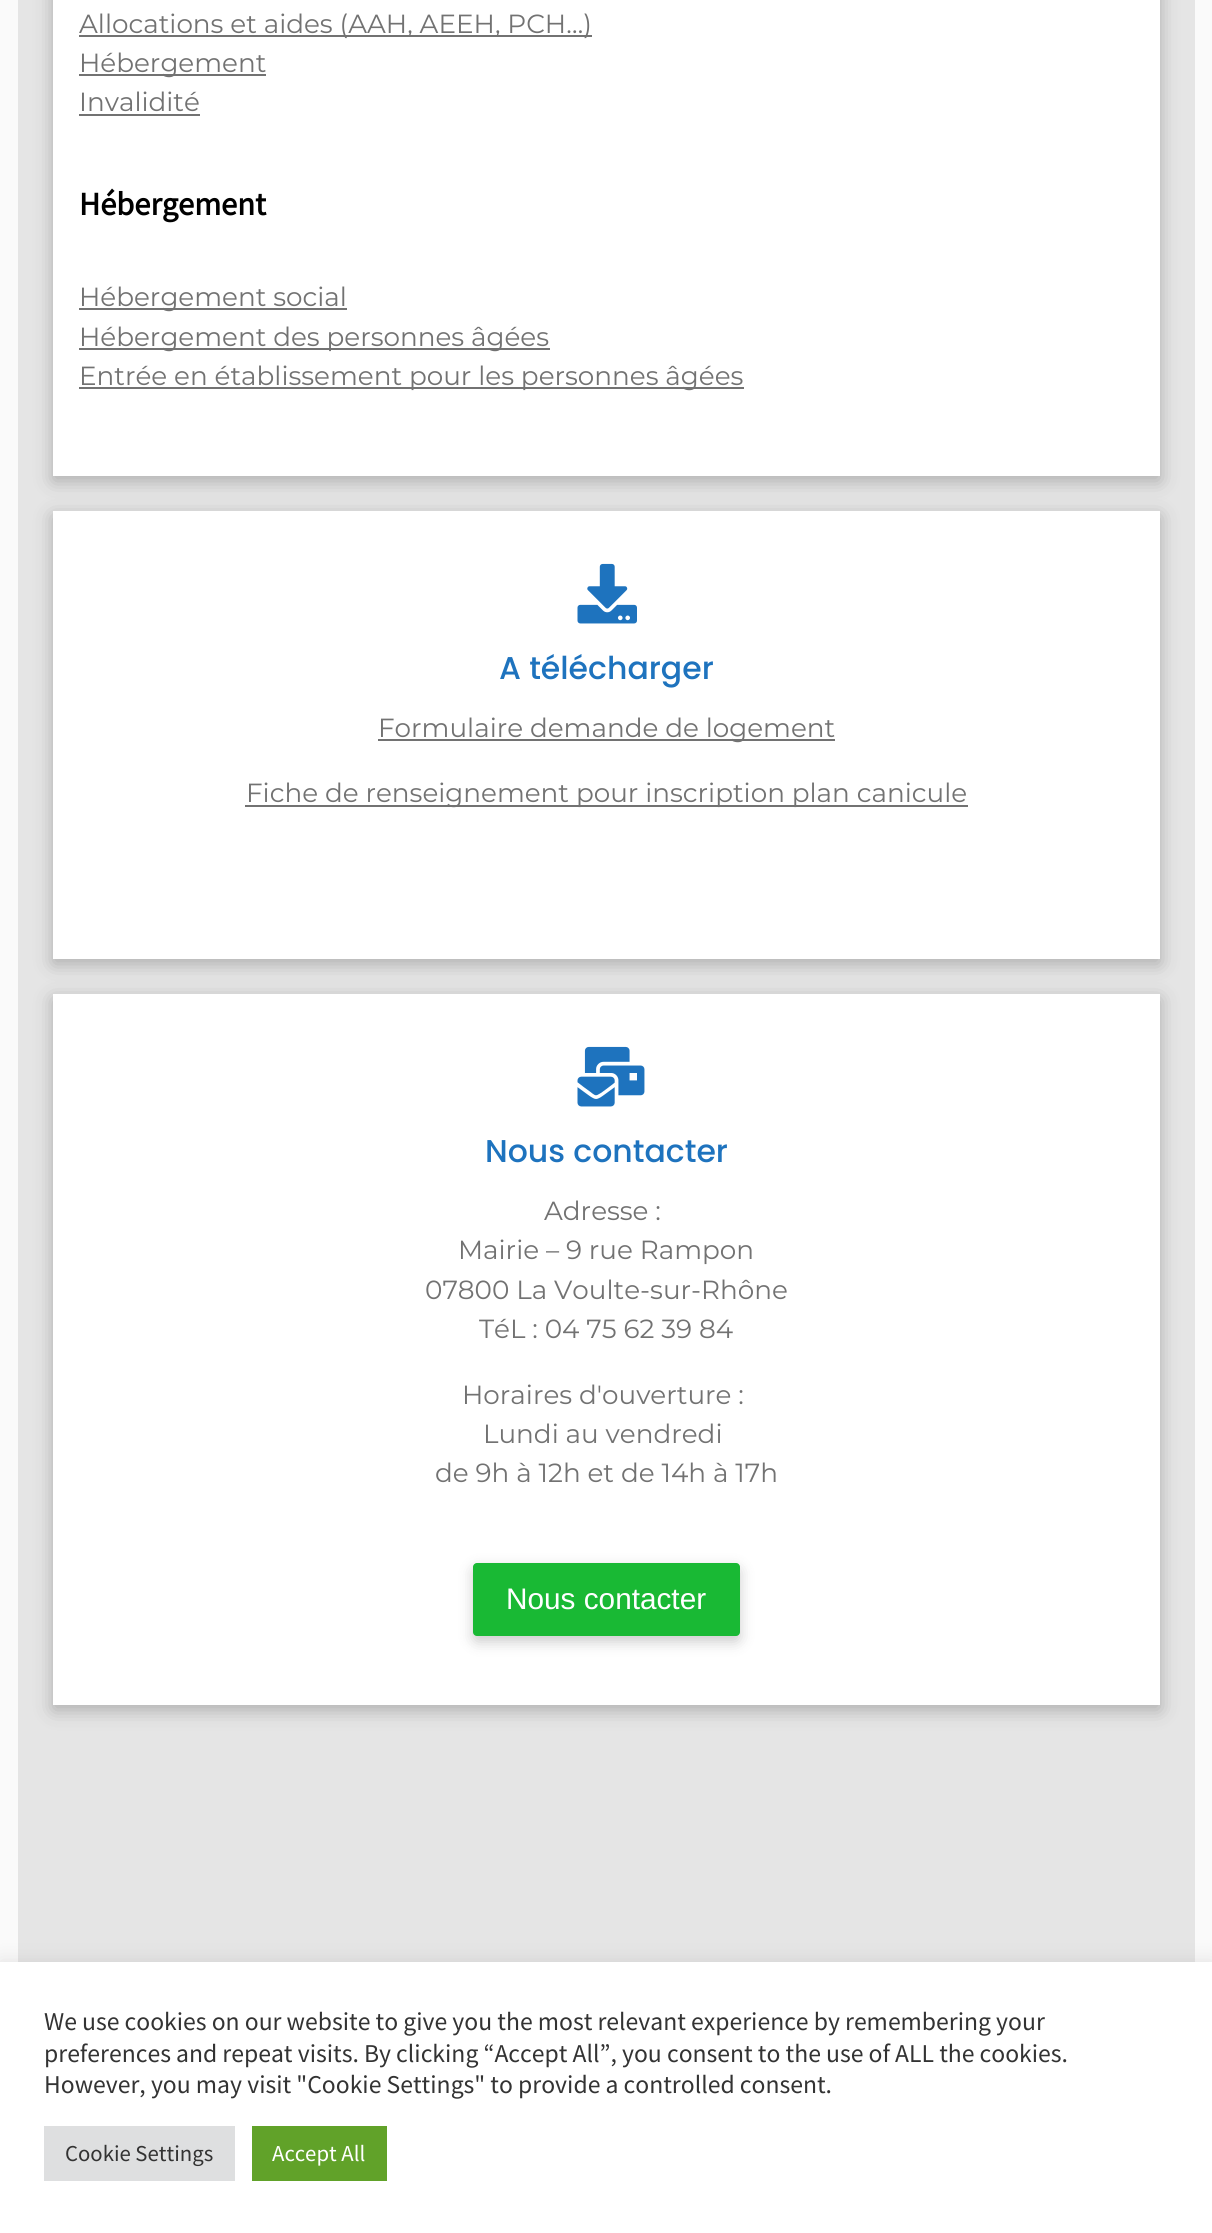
#include <cairo/cairo.h>
#include <math.h>
#include <stddef.h>


static void rounded_rect(cairo_t *cr, double x, double y, double w, double h, double r) {
  cairo_new_sub_path(cr);
  cairo_arc(cr, x + w - r, y + h - r, r, 0, M_PI / 2);
  cairo_arc(cr, x + r, y + h - r, r, M_PI / 2, M_PI);
  cairo_arc(cr, x + r, y + r, r, M_PI, 1.5 * M_PI);
  cairo_arc(cr, x + w - r, y + r, r, 1.5 * M_PI, 2 * M_PI);
  cairo_close_path(cr);
}

static void draw_shadow(cairo_t *cr, double x, double y, double w, double h, double r, double blur, double alpha) {
  cairo_push_group_with_content(cr, CAIRO_CONTENT_ALPHA);
  cairo_set_operator(cr, CAIRO_OPERATOR_SOURCE);
  for (int i = 15; i >= -15 && fmin(w, h) + blur * i / 3 > 0; i -= 2) {
    double e = blur * i / 6;
    cairo_set_source_rgba(cr, 0, 0, 0, alpha * erfc((i - 1) / 8.5) / 2);
    rounded_rect(cr, x - e, y - e, w + 2 * e, h + 2 * e, fmax(0, fmin(r + e + blur * .6, fmin(w, h) / 2 + e)));
    cairo_fill(cr);
  }
  cairo_pattern_t *soft = cairo_pop_group(cr);
  cairo_mask(cr, soft);
  cairo_pattern_destroy(soft);
}

static void draw_image(cairo_t *cr, const char *path, double x, double y, double w, double h) {
  cairo_surface_t *image = cairo_image_surface_create_from_png(path);
  cairo_save(cr);
  cairo_set_source_surface(cr, image, x, y);
  cairo_rectangle(cr, x, y, w, h);
  cairo_fill(cr);
  cairo_restore(cr);
  cairo_surface_destroy(image);
}

static void draw(cairo_t *cr) {
  cairo_set_source_rgb(cr, 250 / 255.0, 250 / 255.0, 250 / 255.0);
  cairo_paint(cr);
  cairo_set_source_rgb(cr, 229 / 255.0, 229 / 255.0, 229 / 255.0);
  cairo_rectangle(cr, 18, 0, 1177, 1962);
  cairo_fill(cr);
  cairo_set_source_rgb(cr, 0, 0, 0);
  draw_shadow(cr, 53, -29, 1107, 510, 0, 9.5, 0.25);
  cairo_set_source_rgb(cr, 1, 1, 1);
  cairo_rectangle(cr, 53, 0, 1107, 476);
  cairo_fill(cr);
  cairo_set_source_rgb(cr, 114 / 255.0, 114 / 255.0, 114 / 255.0);
  cairo_rectangle(cr, 79, 35, 513, 2);
  cairo_fill(cr);
  cairo_rectangle(cr, 79, 74, 187, 2);
  cairo_fill(cr);
  cairo_rectangle(cr, 79, 114, 121, 2);
  cairo_fill(cr);
  cairo_rectangle(cr, 79, 308, 268, 2);
  cairo_fill(cr);
  cairo_rectangle(cr, 79, 348, 471, 2);
  cairo_fill(cr);
  cairo_rectangle(cr, 79, 387, 665, 2);
  cairo_fill(cr);
  cairo_set_source_rgb(cr, 0, 0, 0);
  draw_shadow(cr, 53, 516, 1107, 448, 0, 9.5, 0.25);
  cairo_set_source_rgb(cr, 1, 1, 1);
  cairo_rectangle(cr, 53, 511, 1107, 448);
  cairo_fill(cr);
  draw_image(cr, "images/1.png", 577, 563, 60, 61);
  cairo_set_source_rgb(cr, 114 / 255.0, 114 / 255.0, 114 / 255.0);
  cairo_rectangle(cr, 378, 739, 457, 2);
  cairo_fill(cr);
  cairo_rectangle(cr, 245, 805, 723, 2);
  cairo_fill(cr);
  cairo_set_source_rgb(cr, 0, 0, 0);
  draw_shadow(cr, 53, 999, 1107, 711, 0, 9.5, 0.25);
  cairo_set_source_rgb(cr, 1, 1, 1);
  cairo_rectangle(cr, 53, 994, 1107, 711);
  cairo_fill(cr);
  draw_image(cr, "images/2.png", 577, 1046, 68, 61);
  cairo_set_source_rgb(cr, 0, 0, 0);
  draw_shadow(cr, 473, 1568, 267, 74, 4, 7, 0.2);
  cairo_set_source_rgb(cr, 25 / 255.0, 185 / 255.0, 52 / 255.0);
  rounded_rect(cr, 473, 1563, 267, 73, 4);
  cairo_fill(cr);
  cairo_set_source_rgb(cr, 172 / 255.0, 171 / 255.0, 171 / 255.0);
  draw_shadow(cr, 0, 1960, 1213, 271, 0, 9, 0.3);
  cairo_set_source_rgb(cr, 1, 1, 1);
  cairo_rectangle(cr, 0, 1962, 1212, 271);
  cairo_fill(cr);
  cairo_set_source_rgb(cr, 222 / 255.0, 223 / 255.0, 224 / 255.0);
  cairo_rectangle(cr, 44, 2126, 191, 55);
  cairo_fill(cr);
  cairo_set_source_rgb(cr, 97 / 255.0, 162 / 255.0, 41 / 255.0);
  cairo_rectangle(cr, 252, 2126, 135, 55);
  cairo_fill(cr);
  cairo_select_font_face(cr, "Montserrat", CAIRO_FONT_SLANT_NORMAL, CAIRO_FONT_WEIGHT_NORMAL);
  cairo_set_font_size(cr, 26.25);
  cairo_set_source_rgb(cr, 114 / 255.0, 114 / 255.0, 114 / 255.0);
  cairo_move_to(cr, 79, 33);
  cairo_show_text(cr, "Allocations et aides (AAH, AEEH, PCH…)");
  cairo_move_to(cr, 79, 72);
  cairo_show_text(cr, "Hébergement");
  cairo_move_to(cr, 79, 111);
  cairo_show_text(cr, "Invalidité");
  cairo_select_font_face(cr, "Source Sans Pro", CAIRO_FONT_SLANT_NORMAL, CAIRO_FONT_WEIGHT_BOLD);
  cairo_set_font_size(cr, 32.5);
  cairo_set_source_rgb(cr, 0, 0, 0);
  cairo_move_to(cr, 79, 215);
  cairo_show_text(cr, "Hébergement");
  cairo_select_font_face(cr, "Montserrat", CAIRO_FONT_SLANT_NORMAL, CAIRO_FONT_WEIGHT_NORMAL);
  cairo_set_font_size(cr, 26.25);
  cairo_set_source_rgb(cr, 114 / 255.0, 114 / 255.0, 114 / 255.0);
  cairo_move_to(cr, 79, 306);
  cairo_show_text(cr, "Hébergement social");
  cairo_move_to(cr, 79, 346);
  cairo_show_text(cr, "Hébergement des personnes âgées");
  cairo_move_to(cr, 79, 385);
  cairo_show_text(cr, "Entrée en établissement pour les personnes âgées");
  cairo_select_font_face(cr, "Poppins Medium", CAIRO_FONT_SLANT_NORMAL, CAIRO_FONT_WEIGHT_NORMAL);
  cairo_set_font_size(cr, 31.5);
  cairo_set_source_rgb(cr, 30 / 255.0, 115 / 255.0, 190 / 255.0);
  cairo_move_to(cr, 499, 679);
  cairo_show_text(cr, "A télécharger");
  cairo_select_font_face(cr, "Montserrat", CAIRO_FONT_SLANT_NORMAL, CAIRO_FONT_WEIGHT_NORMAL);
  cairo_set_font_size(cr, 26.25);
  cairo_set_source_rgb(cr, 114 / 255.0, 114 / 255.0, 114 / 255.0);
  cairo_move_to(cr, 378, 737);
  cairo_show_text(cr, "Formulaire demande de logement");
  cairo_move_to(cr, 246, 802);
  cairo_show_text(cr, "Fiche de renseignement pour inscription plan canicule");
  cairo_select_font_face(cr, "Poppins Medium", CAIRO_FONT_SLANT_NORMAL, CAIRO_FONT_WEIGHT_NORMAL);
  cairo_set_font_size(cr, 31.5);
  cairo_set_source_rgb(cr, 30 / 255.0, 115 / 255.0, 190 / 255.0);
  cairo_move_to(cr, 485, 1162);
  cairo_show_text(cr, "Nous contacter");
  cairo_select_font_face(cr, "Montserrat", CAIRO_FONT_SLANT_NORMAL, CAIRO_FONT_WEIGHT_NORMAL);
  cairo_set_font_size(cr, 26.25);
  cairo_set_source_rgb(cr, 114 / 255.0, 114 / 255.0, 114 / 255.0);
  cairo_move_to(cr, 544, 1220);
  cairo_show_text(cr, "Adresse :");
  cairo_move_to(cr, 458, 1259);
  cairo_show_text(cr, "Mairie – 9 rue Rampon");
  cairo_move_to(cr, 425, 1299);
  cairo_show_text(cr, "07800 La Voulte-sur-Rhône");
  cairo_move_to(cr, 479, 1338);
  cairo_show_text(cr, "TéL : 04 75 62 39 84");
  cairo_move_to(cr, 462, 1404);
  cairo_show_text(cr, "Horaires d'ouverture :");
  cairo_move_to(cr, 483, 1443);
  cairo_show_text(cr, "Lundi au vendredi");
  cairo_move_to(cr, 435, 1482);
  cairo_show_text(cr, "de 9h à 12h et de 14h à 17h");
  cairo_select_font_face(cr, "Liberation Sans", CAIRO_FONT_SLANT_NORMAL, CAIRO_FONT_WEIGHT_NORMAL);
  cairo_set_font_size(cr, 29.75);
  cairo_set_source_rgb(cr, 1, 1, 1);
  cairo_move_to(cr, 506, 1609);
  cairo_show_text(cr, "Nous contacter");
  cairo_select_font_face(cr, "Source Sans Pro", CAIRO_FONT_SLANT_NORMAL, CAIRO_FONT_WEIGHT_NORMAL);
  cairo_set_font_size(cr, 25.65);
  cairo_set_source_rgb(cr, 51 / 255.0, 51 / 255.0, 51 / 255.0);
  cairo_move_to(cr, 44, 2030);
  cairo_show_text(cr, "We use cookies on our website to give you the most relevant experience by remembering your");
  cairo_move_to(cr, 44, 2062);
  cairo_show_text(cr, "preferences and repeat visits. By clicking “Accept All”, you consent to the use of ALL the cookies.");
  cairo_move_to(cr, 44, 2093);
  cairo_show_text(cr, "However, you may visit \"Cookie Settings\" to provide a controlled consent.");
  cairo_set_font_size(cr, 22.75);
  cairo_move_to(cr, 65, 2161);
  cairo_show_text(cr, "Cookie Settings");
  cairo_set_source_rgb(cr, 1, 1, 1);
  cairo_move_to(cr, 272, 2161);
  cairo_show_text(cr, "Accept All");
}

int main(void) {
  cairo_surface_t *surface = cairo_image_surface_create(CAIRO_FORMAT_RGB24, 1212, 2233);
  cairo_t *cr = cairo_create(surface);
  cairo_font_options_t *options = cairo_font_options_create();
  cairo_font_options_set_hint_metrics(options, CAIRO_HINT_METRICS_OFF);
  cairo_font_options_set_hint_style(options, CAIRO_HINT_STYLE_NONE);
  cairo_set_font_options(cr, options);
  cairo_set_miter_limit(cr, 4);
  draw(cr);
  cairo_surface_write_to_png(surface, "out.png");
  cairo_font_options_destroy(options);
  cairo_destroy(cr);
  cairo_surface_destroy(surface);
  return 0;
}
